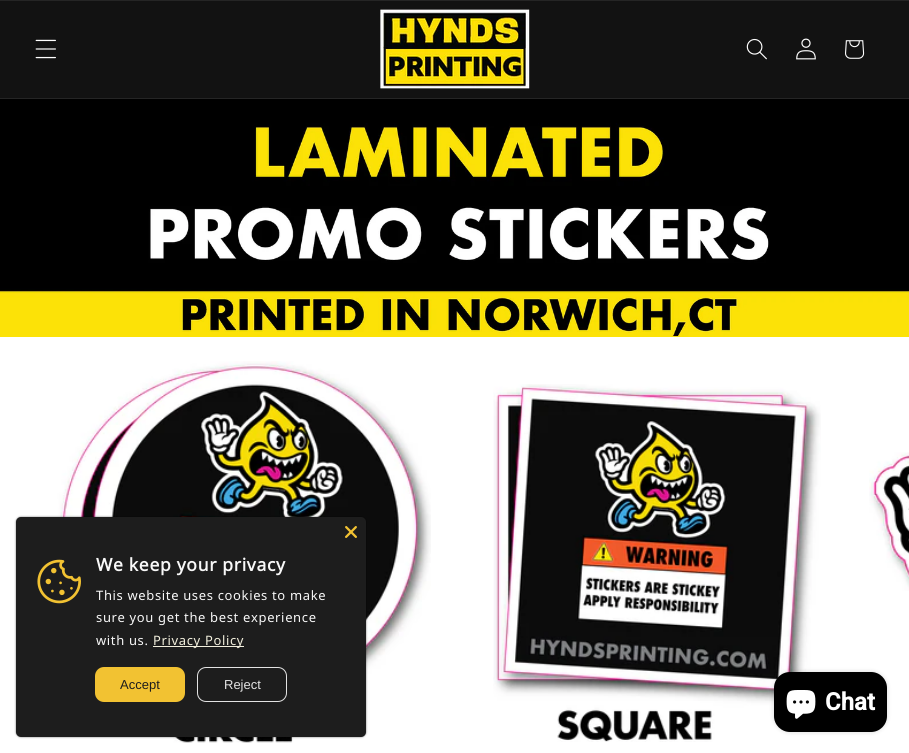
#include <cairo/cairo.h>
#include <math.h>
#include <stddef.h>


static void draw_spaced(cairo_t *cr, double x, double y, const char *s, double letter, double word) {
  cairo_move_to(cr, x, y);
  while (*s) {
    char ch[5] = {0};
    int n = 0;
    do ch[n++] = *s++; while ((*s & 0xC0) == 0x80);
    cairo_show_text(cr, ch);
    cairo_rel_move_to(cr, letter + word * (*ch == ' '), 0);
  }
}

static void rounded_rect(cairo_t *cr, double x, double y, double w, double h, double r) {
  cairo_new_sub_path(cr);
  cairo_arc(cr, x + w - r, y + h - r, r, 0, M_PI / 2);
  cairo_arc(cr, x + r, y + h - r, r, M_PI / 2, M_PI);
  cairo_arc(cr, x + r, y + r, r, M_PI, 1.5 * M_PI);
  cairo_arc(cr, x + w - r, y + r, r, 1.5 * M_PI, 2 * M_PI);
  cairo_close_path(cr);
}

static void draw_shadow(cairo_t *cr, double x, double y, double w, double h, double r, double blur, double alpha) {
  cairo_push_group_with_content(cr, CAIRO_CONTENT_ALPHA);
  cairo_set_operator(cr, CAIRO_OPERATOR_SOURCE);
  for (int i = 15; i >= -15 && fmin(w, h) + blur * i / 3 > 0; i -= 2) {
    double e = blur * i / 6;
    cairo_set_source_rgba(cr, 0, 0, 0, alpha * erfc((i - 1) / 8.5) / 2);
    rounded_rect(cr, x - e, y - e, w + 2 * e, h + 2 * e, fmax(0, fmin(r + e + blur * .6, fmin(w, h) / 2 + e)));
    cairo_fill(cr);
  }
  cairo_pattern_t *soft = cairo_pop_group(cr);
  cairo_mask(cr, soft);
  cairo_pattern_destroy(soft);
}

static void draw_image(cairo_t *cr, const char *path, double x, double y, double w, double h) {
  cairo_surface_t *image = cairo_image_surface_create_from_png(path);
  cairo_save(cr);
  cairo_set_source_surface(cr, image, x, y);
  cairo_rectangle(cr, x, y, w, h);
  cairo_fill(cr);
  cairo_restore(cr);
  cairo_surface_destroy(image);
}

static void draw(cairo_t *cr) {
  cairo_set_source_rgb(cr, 1, 1, 1);
  cairo_paint(cr);
  cairo_set_source_rgb(cr, 37 / 255.0, 37 / 255.0, 37 / 255.0);
  cairo_rectangle(cr, 0, 0, 909, 1);
  cairo_fill(cr);
  cairo_set_source_rgb(cr, 18 / 255.0, 18 / 255.0, 18 / 255.0);
  cairo_rectangle(cr, 0, 1, 909, 97);
  cairo_fill(cr);
  cairo_set_source_rgb(cr, 37 / 255.0, 37 / 255.0, 37 / 255.0);
  cairo_rectangle(cr, 0, 98, 909, 1);
  cairo_fill(cr);
  draw_image(cr, "images/1.png", 35, 39, 21, 20);
  draw_image(cr, "images/2.png", 380, 9, 150, 80);
  draw_image(cr, "images/3.png", 746, 38, 21, 22);
  draw_image(cr, "images/4.png", 796, 38, 20, 22);
  draw_image(cr, "images/5.png", 845, 40, 20, 19);
  draw_image(cr, "images/6.png", 0, 99, 909, 238);
  draw_image(cr, "images/7.png", 57, 361, 374, 382);
  draw_image(cr, "images/8.png", 493, 384, 328, 358);
  draw_image(cr, "images/9.png", 869, 452, 40, 139);
  cairo_set_source_rgb(cr, 0, 0, 0);
  draw_shadow(cr, 16, 517, 350, 220, 5, 1, 0.5);
  cairo_set_source_rgb(cr, 29 / 255.0, 29 / 255.0, 29 / 255.0);
  rounded_rect(cr, 16, 517, 350, 220, 5);
  cairo_fill(cr);
  draw_image(cr, "images/10.png", 345, 526, 12, 12);
  draw_image(cr, "images/11.png", 37, 559, 44, 45);
  cairo_set_source_rgb(cr, 242 / 255.0, 239 / 255.0, 221 / 255.0);
  cairo_rectangle(cr, 153, 646, 91, 1);
  cairo_fill(cr);
  cairo_set_source_rgb(cr, 242 / 255.0, 194 / 255.0, 50 / 255.0);
  rounded_rect(cr, 95, 667, 90, 35, 9);
  cairo_fill(cr);
  rounded_rect(cr, 197.5, 667.5, 89, 34, 8.5);
  cairo_set_source_rgb(cr, 227 / 255.0, 227 / 255.0, 227 / 255.0);
  cairo_set_line_width(cr, 1);
  cairo_stroke(cr);
  cairo_set_source_rgb(cr, 0, 0, 0);
  draw_shadow(cr, 774, 672, 113, 60, 16, 2.5, 0.15);
  cairo_set_source_rgb(cr, 0, 0, 0);
  rounded_rect(cr, 774, 672, 113, 60, 16);
  cairo_fill(cr);
  draw_image(cr, "images/12.png", 786, 690, 30, 29);
  cairo_select_font_face(cr, "Noto Sans", CAIRO_FONT_SLANT_NORMAL, CAIRO_FONT_WEIGHT_BOLD);
  cairo_set_font_size(cr, 17.6);
  cairo_set_source_rgb(cr, 248 / 255.0, 248 / 255.0, 248 / 255.0);
  draw_spaced(cr, 96, 571, "We keep your privacy", 0.65, 0);
  cairo_select_font_face(cr, "Noto Sans", CAIRO_FONT_SLANT_NORMAL, CAIRO_FONT_WEIGHT_NORMAL);
  cairo_set_font_size(cr, 13);
  draw_spaced(cr, 96, 600, "This website uses cookies to make", 0.65, 0);
  draw_spaced(cr, 96, 622, "sure you get the best experience", 0.65, 0);
  draw_spaced(cr, 96, 645, "with us.", 0.65, 0);
  cairo_set_source_rgb(cr, 242 / 255.0, 239 / 255.0, 221 / 255.0);
  draw_spaced(cr, 153, 645, "Privacy Policy", 0.65, 0);
  cairo_select_font_face(cr, "Liberation Sans", CAIRO_FONT_SLANT_NORMAL, CAIRO_FONT_WEIGHT_NORMAL);
  cairo_set_source_rgb(cr, 29 / 255.0, 29 / 255.0, 29 / 255.0);
  cairo_move_to(cr, 120, 689);
  cairo_show_text(cr, "Accept");
  cairo_set_source_rgb(cr, 227 / 255.0, 227 / 255.0, 227 / 255.0);
  cairo_move_to(cr, 224, 689);
  cairo_show_text(cr, "Reject");
  cairo_select_font_face(cr, "Roboto", CAIRO_FONT_SLANT_NORMAL, CAIRO_FONT_WEIGHT_BOLD);
  cairo_set_font_size(cr, 24);
  cairo_set_source_rgb(cr, 1, 1, 1);
  cairo_move_to(cr, 825, 710);
  cairo_show_text(cr, "Chat");
}

int main(void) {
  cairo_surface_t *surface = cairo_image_surface_create(CAIRO_FORMAT_RGB24, 909, 753);
  cairo_t *cr = cairo_create(surface);
  cairo_font_options_t *options = cairo_font_options_create();
  cairo_font_options_set_hint_metrics(options, CAIRO_HINT_METRICS_OFF);
  cairo_font_options_set_hint_style(options, CAIRO_HINT_STYLE_NONE);
  cairo_set_font_options(cr, options);
  cairo_set_miter_limit(cr, 4);
  draw(cr);
  cairo_surface_write_to_png(surface, "out.png");
  cairo_font_options_destroy(options);
  cairo_destroy(cr);
  cairo_surface_destroy(surface);
  return 0;
}
